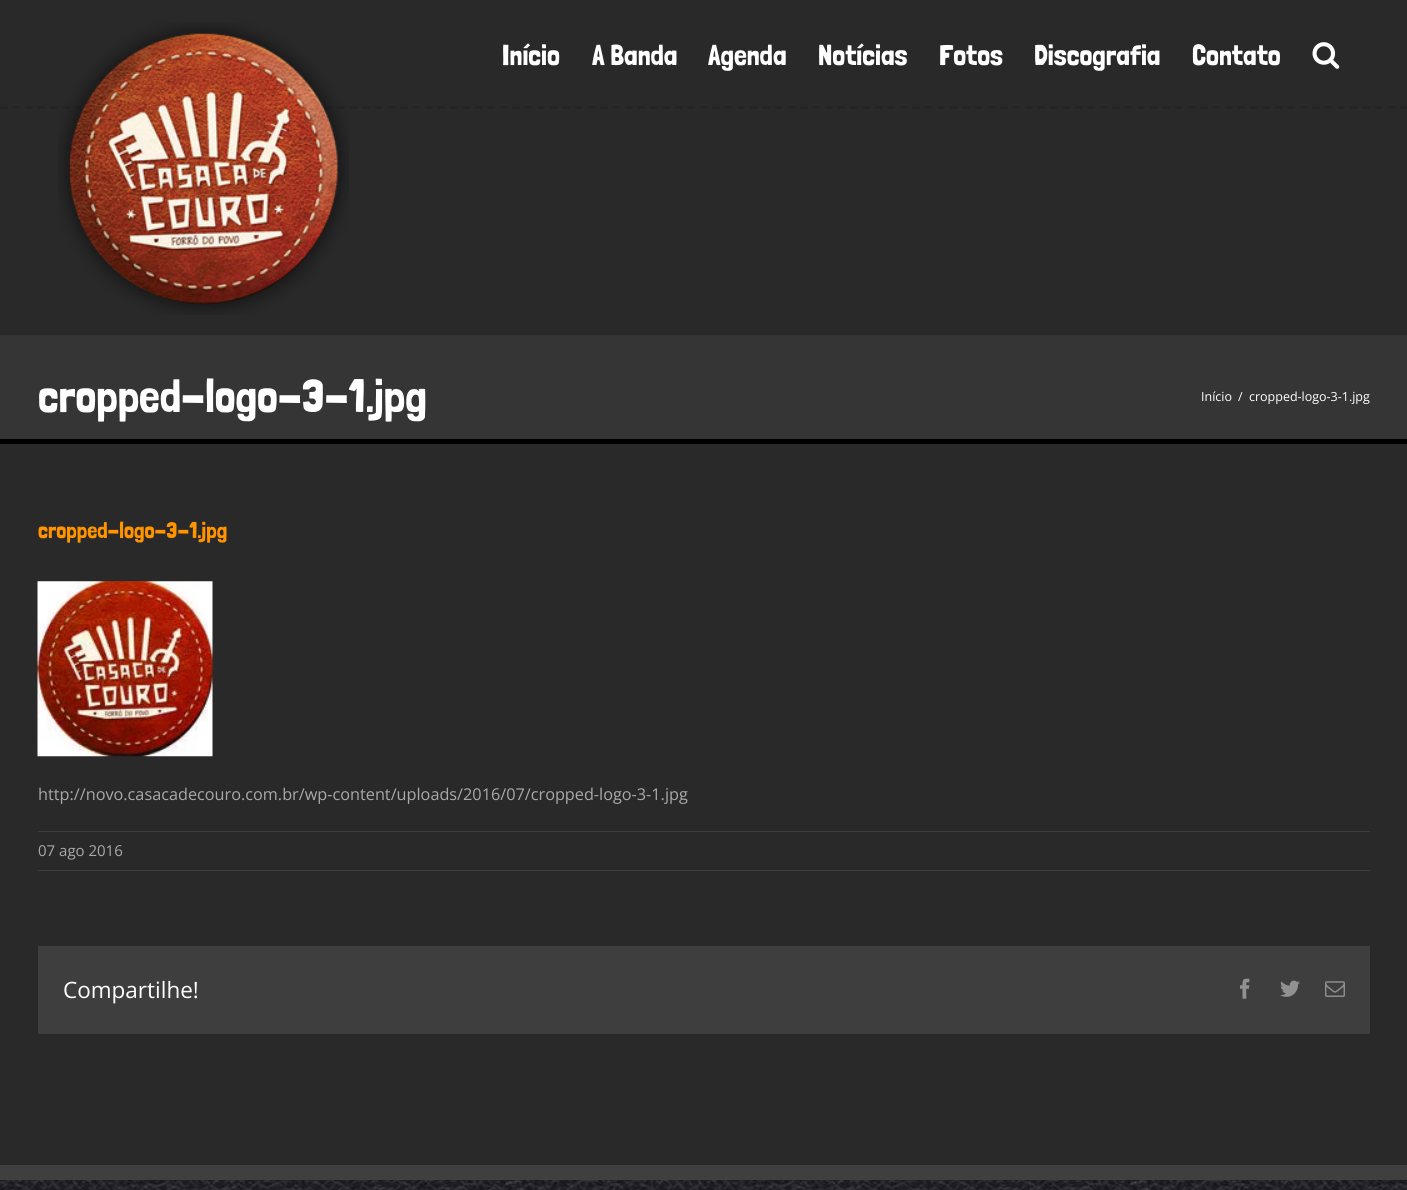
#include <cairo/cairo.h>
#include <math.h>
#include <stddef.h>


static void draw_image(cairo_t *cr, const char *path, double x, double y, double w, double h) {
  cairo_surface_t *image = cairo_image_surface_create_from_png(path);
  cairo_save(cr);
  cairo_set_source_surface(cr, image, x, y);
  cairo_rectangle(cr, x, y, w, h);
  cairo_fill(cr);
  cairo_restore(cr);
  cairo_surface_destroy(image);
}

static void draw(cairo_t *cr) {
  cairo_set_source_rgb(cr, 41 / 255.0, 41 / 255.0, 42 / 255.0);
  cairo_paint(cr);
  cairo_new_path(cr);
  cairo_move_to(cr, 0, 107.5);
  cairo_line_to(cr, 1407.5, 107.5);
  cairo_set_source_rgb(cr, 36 / 255.0, 36 / 255.0, 37 / 255.0);
  cairo_set_line_width(cr, 2.5);
  cairo_set_dash(cr, (double[]){7.5, 5}, 2, 0);
  cairo_stroke(cr);
  draw_image(cr, "images/1.png", 58, 22, 291, 293);
  draw_image(cr, "images/2.png", 1312, 42, 28, 27);
  cairo_set_source_rgb(cr, 53 / 255.0, 53 / 255.0, 53 / 255.0);
  cairo_rectangle(cr, 0, 335, 1407, 104);
  cairo_fill(cr);
  cairo_set_source_rgb(cr, 0, 0, 0);
  cairo_rectangle(cr, 0, 439, 1407, 5);
  cairo_fill(cr);
  draw_image(cr, "images/3.png", 37, 581, 176, 176);
  cairo_set_source_rgb(cr, 62 / 255.0, 62 / 255.0, 62 / 255.0);
  cairo_rectangle(cr, 38, 831, 1332, 1);
  cairo_fill(cr);
  cairo_rectangle(cr, 38, 870, 1332, 1);
  cairo_fill(cr);
  cairo_rectangle(cr, 38, 946, 1332, 88);
  cairo_fill(cr);
  draw_image(cr, "images/4.png", 1240, 978, 10, 21);
  draw_image(cr, "images/5.png", 1280, 980, 20, 17);
  draw_image(cr, "images/6.png", 1325, 981, 20, 16);
  draw_image(cr, "images/7.png", 0, 1180, 1407, 10);
  cairo_set_source_rgb(cr, 64 / 255.0, 63 / 255.0, 63 / 255.0);
  cairo_rectangle(cr, 0, 1165, 1407, 15);
  cairo_fill(cr);
  cairo_select_font_face(cr, "Londrina Solid", CAIRO_FONT_SLANT_NORMAL, CAIRO_FONT_WEIGHT_NORMAL);
  cairo_set_font_size(cr, 28.75);
  cairo_set_source_rgb(cr, 1, 1, 1);
  cairo_move_to(cr, 502, 65);
  cairo_show_text(cr, "Início");
  cairo_move_to(cr, 592, 65);
  cairo_show_text(cr, "A Banda");
  cairo_move_to(cr, 708, 65);
  cairo_show_text(cr, "Agenda");
  cairo_move_to(cr, 818, 65);
  cairo_show_text(cr, "Notícias");
  cairo_move_to(cr, 939, 65);
  cairo_show_text(cr, "Fotos");
  cairo_move_to(cr, 1034, 65);
  cairo_show_text(cr, "Discografia");
  cairo_move_to(cr, 1192, 65);
  cairo_show_text(cr, "Contato");
  cairo_set_font_size(cr, 46.25);
  cairo_move_to(cr, 38, 412);
  cairo_show_text(cr, "cropped-logo-3-1.jpg");
  cairo_select_font_face(cr, "Open Sans", CAIRO_FONT_SLANT_NORMAL, CAIRO_FONT_WEIGHT_NORMAL);
  cairo_set_font_size(cr, 12.5);
  cairo_move_to(cr, 1201, 401);
  cairo_show_text(cr, "Início");
  cairo_move_to(cr, 1238, 401);
  cairo_show_text(cr, "/");
  cairo_move_to(cr, 1249, 401);
  cairo_show_text(cr, "cropped-logo-3-1.jpg");
  cairo_select_font_face(cr, "Londrina Solid", CAIRO_FONT_SLANT_NORMAL, CAIRO_FONT_WEIGHT_NORMAL);
  cairo_set_font_size(cr, 22.5);
  cairo_set_source_rgb(cr, 1, 148 / 255.0, 0);
  cairo_move_to(cr, 38, 538);
  cairo_show_text(cr, "cropped-logo-3-1.jpg");
  cairo_select_font_face(cr, "Open Sans", CAIRO_FONT_SLANT_NORMAL, CAIRO_FONT_WEIGHT_NORMAL);
  cairo_set_font_size(cr, 16.25);
  cairo_set_source_rgb(cr, 170 / 255.0, 169 / 255.0, 169 / 255.0);
  cairo_move_to(cr, 38, 800);
  cairo_show_text(cr, "http://novo.casacadecouro.com.br/wp-content/uploads/2016/07/cropped-logo-3-1.jpg");
  cairo_set_font_size(cr, 15);
  cairo_move_to(cr, 38, 856);
  cairo_show_text(cr, "07 ago 2016");
  cairo_set_font_size(cr, 22.5);
  cairo_set_source_rgb(cr, 1, 1, 1);
  cairo_move_to(cr, 63, 998);
  cairo_show_text(cr, "Compartilhe!");
}

int main(void) {
  cairo_surface_t *surface = cairo_image_surface_create(CAIRO_FORMAT_RGB24, 1407, 1190);
  cairo_t *cr = cairo_create(surface);
  cairo_font_options_t *options = cairo_font_options_create();
  cairo_font_options_set_hint_metrics(options, CAIRO_HINT_METRICS_OFF);
  cairo_font_options_set_hint_style(options, CAIRO_HINT_STYLE_NONE);
  cairo_set_font_options(cr, options);
  cairo_set_miter_limit(cr, 4);
  draw(cr);
  cairo_surface_write_to_png(surface, "out.png");
  cairo_font_options_destroy(options);
  cairo_destroy(cr);
  cairo_surface_destroy(surface);
  return 0;
}
